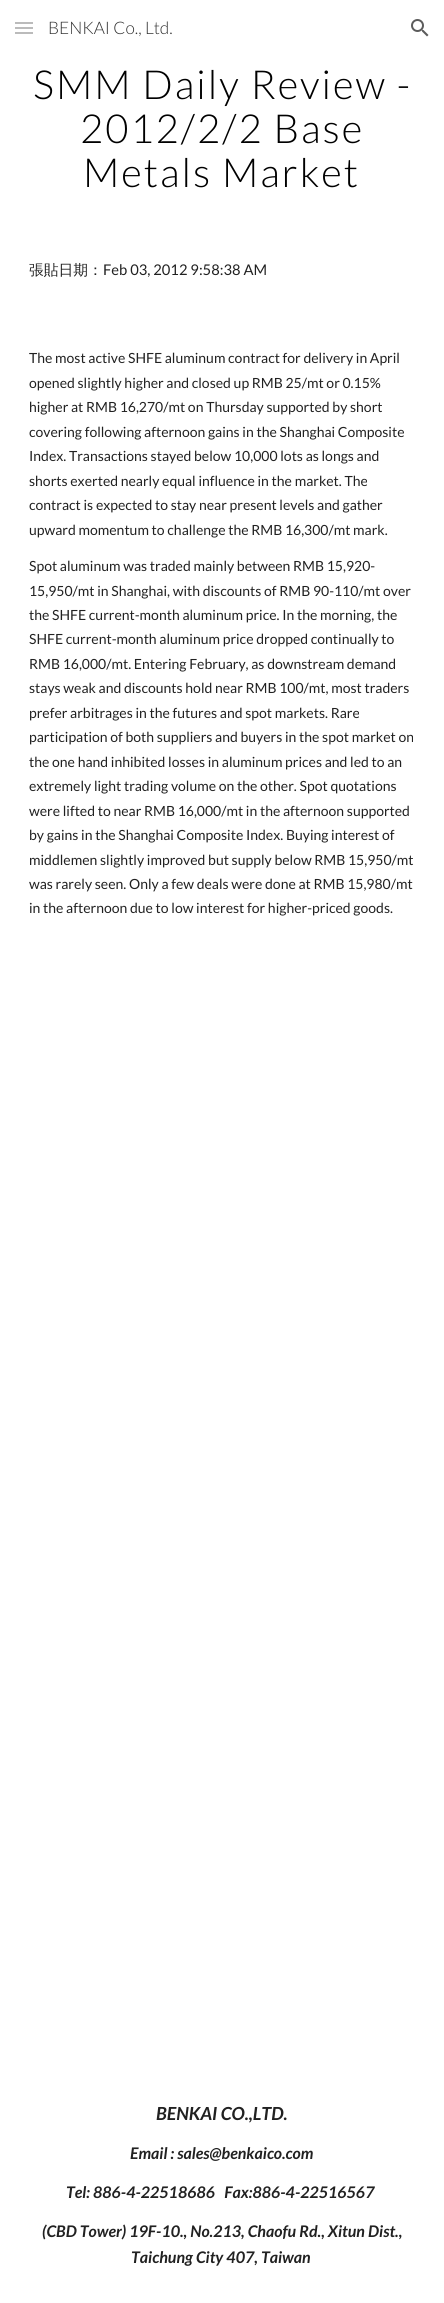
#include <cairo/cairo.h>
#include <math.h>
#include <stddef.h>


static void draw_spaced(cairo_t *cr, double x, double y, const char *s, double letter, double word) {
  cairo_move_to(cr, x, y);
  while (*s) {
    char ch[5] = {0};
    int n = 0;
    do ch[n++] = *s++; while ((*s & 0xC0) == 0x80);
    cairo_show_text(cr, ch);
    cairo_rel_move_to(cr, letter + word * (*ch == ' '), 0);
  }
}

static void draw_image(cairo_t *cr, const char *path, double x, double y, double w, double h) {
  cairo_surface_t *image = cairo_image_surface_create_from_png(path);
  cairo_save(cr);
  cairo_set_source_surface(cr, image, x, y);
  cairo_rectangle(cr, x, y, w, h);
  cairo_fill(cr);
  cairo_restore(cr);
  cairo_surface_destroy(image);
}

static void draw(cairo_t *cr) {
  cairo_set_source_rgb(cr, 1, 1, 1);
  cairo_paint(cr);
  cairo_set_source_rgb(cr, 178 / 255.0, 178 / 255.0, 178 / 255.0);
  cairo_rectangle(cr, 15, 22, 18, 2);
  cairo_fill(cr);
  cairo_rectangle(cr, 15, 27, 18, 2);
  cairo_fill(cr);
  cairo_rectangle(cr, 15, 32, 18, 2);
  cairo_fill(cr);
  cairo_set_source_rgba(cr, 1, 1, 1, 0.12);
  cairo_rectangle(cr, 15, 22, 18, 12);
  cairo_fill(cr);
  draw_image(cr, "images/1.png", 411, 19, 18, 18);
  cairo_select_font_face(cr, "Lato Light", CAIRO_FONT_SLANT_NORMAL, CAIRO_FONT_WEIGHT_NORMAL);
  cairo_set_font_size(cr, 17.25);
  cairo_set_source_rgb(cr, 51 / 255.0, 51 / 255.0, 51 / 255.0);
  cairo_move_to(cr, 48, 34);
  cairo_show_text(cr, "BENKAI Co., Ltd.");
  cairo_set_font_size(cr, 40);
  cairo_set_source_rgb(cr, 0, 0, 0);
  draw_spaced(cr, 33, 99, "SMM Daily Review -", 2, 0);
  draw_spaced(cr, 80, 143, "2012/2/2 Base", 2, 0);
  draw_spaced(cr, 83, 187, "Metals Market", 2, 0);
  cairo_select_font_face(cr, "WenQuanYi Zen Hei Medium", CAIRO_FONT_SLANT_NORMAL, CAIRO_FONT_WEIGHT_NORMAL);
  cairo_set_font_size(cr, 14.75);
  cairo_set_source_rgb(cr, 33 / 255.0, 33 / 255.0, 33 / 255.0);
  cairo_move_to(cr, 29, 275);
  cairo_show_text(cr, "張貼日期：");
  cairo_select_font_face(cr, "Lato", CAIRO_FONT_SLANT_NORMAL, CAIRO_FONT_WEIGHT_NORMAL);
  cairo_move_to(cr, 103, 275);
  cairo_show_text(cr, "Feb 03, 2012 9:58:38 AM");
  cairo_set_font_size(cr, 14);
  cairo_move_to(cr, 29, 363);
  cairo_show_text(cr, "The most active SHFE aluminum contract for delivery in April");
  cairo_move_to(cr, 29, 388);
  cairo_show_text(cr, "opened slightly higher and closed up RMB 25/mt or 0.15%");
  cairo_move_to(cr, 29, 412);
  cairo_show_text(cr, "higher at RMB 16,270/mt on Thursday supported by short");
  cairo_move_to(cr, 29, 437);
  cairo_show_text(cr, "covering following afternoon gains in the Shanghai Composite");
  cairo_move_to(cr, 29, 461);
  cairo_show_text(cr, "Index. Transactions stayed below 10,000 lots as longs and");
  cairo_move_to(cr, 29, 486);
  cairo_show_text(cr, "shorts exerted nearly equal influence in the market. The");
  cairo_move_to(cr, 29, 510);
  cairo_show_text(cr, "contract is expected to stay near present levels and gather");
  cairo_move_to(cr, 29, 535);
  cairo_show_text(cr, "upward momentum to challenge the RMB 16,300/mt mark.");
  cairo_move_to(cr, 29, 571);
  cairo_show_text(cr, "Spot aluminum was traded mainly between RMB 15,920-");
  cairo_move_to(cr, 29, 596);
  cairo_show_text(cr, "15,950/mt in Shanghai, with discounts of RMB 90-110/mt over");
  cairo_move_to(cr, 29, 620);
  cairo_show_text(cr, "the SHFE current-month aluminum price. In the morning, the");
  cairo_move_to(cr, 29, 644);
  cairo_show_text(cr, "SHFE current-month aluminum price dropped continually to");
  cairo_move_to(cr, 29, 669);
  cairo_show_text(cr, "RMB 16,000/mt. Entering February, as downstream demand");
  cairo_move_to(cr, 29, 693);
  cairo_show_text(cr, "stays weak and discounts hold near RMB 100/mt, most traders");
  cairo_move_to(cr, 29, 718);
  cairo_show_text(cr, "prefer arbitrages in the futures and spot markets. Rare");
  cairo_move_to(cr, 29, 742);
  cairo_show_text(cr, "participation of both suppliers and buyers in the spot market on");
  cairo_move_to(cr, 29, 767);
  cairo_show_text(cr, "the one hand inhibited losses in aluminum prices and led to an");
  cairo_move_to(cr, 29, 791);
  cairo_show_text(cr, "extremely light trading volume on the other. Spot quotations");
  cairo_move_to(cr, 29, 816);
  cairo_show_text(cr, "were lifted to near RMB 16,000/mt in the afternoon supported");
  cairo_move_to(cr, 29, 840);
  cairo_show_text(cr, "by gains in the Shanghai Composite Index. Buying interest of");
  cairo_move_to(cr, 29, 865);
  cairo_show_text(cr, "middlemen slightly improved but supply below RMB 15,950/mt");
  cairo_move_to(cr, 29, 889);
  cairo_show_text(cr, "was rarely seen. Only a few deals were done at RMB 15,980/mt");
  cairo_move_to(cr, 29, 913);
  cairo_show_text(cr, "in the afternoon due to low interest for higher-priced goods.");
  cairo_select_font_face(cr, "Lato", CAIRO_FONT_SLANT_ITALIC, CAIRO_FONT_WEIGHT_BOLD);
  cairo_set_font_size(cr, 18);
  cairo_move_to(cr, 156, 2120);
  cairo_show_text(cr, "BENKAI CO.,LTD.");
  cairo_set_font_size(cr, 16);
  cairo_move_to(cr, 130, 2159);
  cairo_show_text(cr, "Email : sales@benkaico.com");
  cairo_move_to(cr, 66, 2198);
  cairo_show_text(cr, "Tel: 886-4-22518686   Fax:886-4-22516567");
  cairo_move_to(cr, 42, 2237);
  cairo_show_text(cr, "(CBD Tower) 19F-10., No.213, Chaofu Rd., Xitun Dist.,");
  cairo_move_to(cr, 131, 2263);
  cairo_show_text(cr, "Taichung City 407, Taiwan");
}

int main(void) {
  cairo_surface_t *surface = cairo_image_surface_create(CAIRO_FORMAT_RGB24, 444, 2303);
  cairo_t *cr = cairo_create(surface);
  cairo_font_options_t *options = cairo_font_options_create();
  cairo_font_options_set_hint_metrics(options, CAIRO_HINT_METRICS_OFF);
  cairo_font_options_set_hint_style(options, CAIRO_HINT_STYLE_NONE);
  cairo_set_font_options(cr, options);
  cairo_set_miter_limit(cr, 4);
  draw(cr);
  cairo_surface_write_to_png(surface, "out.png");
  cairo_font_options_destroy(options);
  cairo_destroy(cr);
  cairo_surface_destroy(surface);
  return 0;
}
